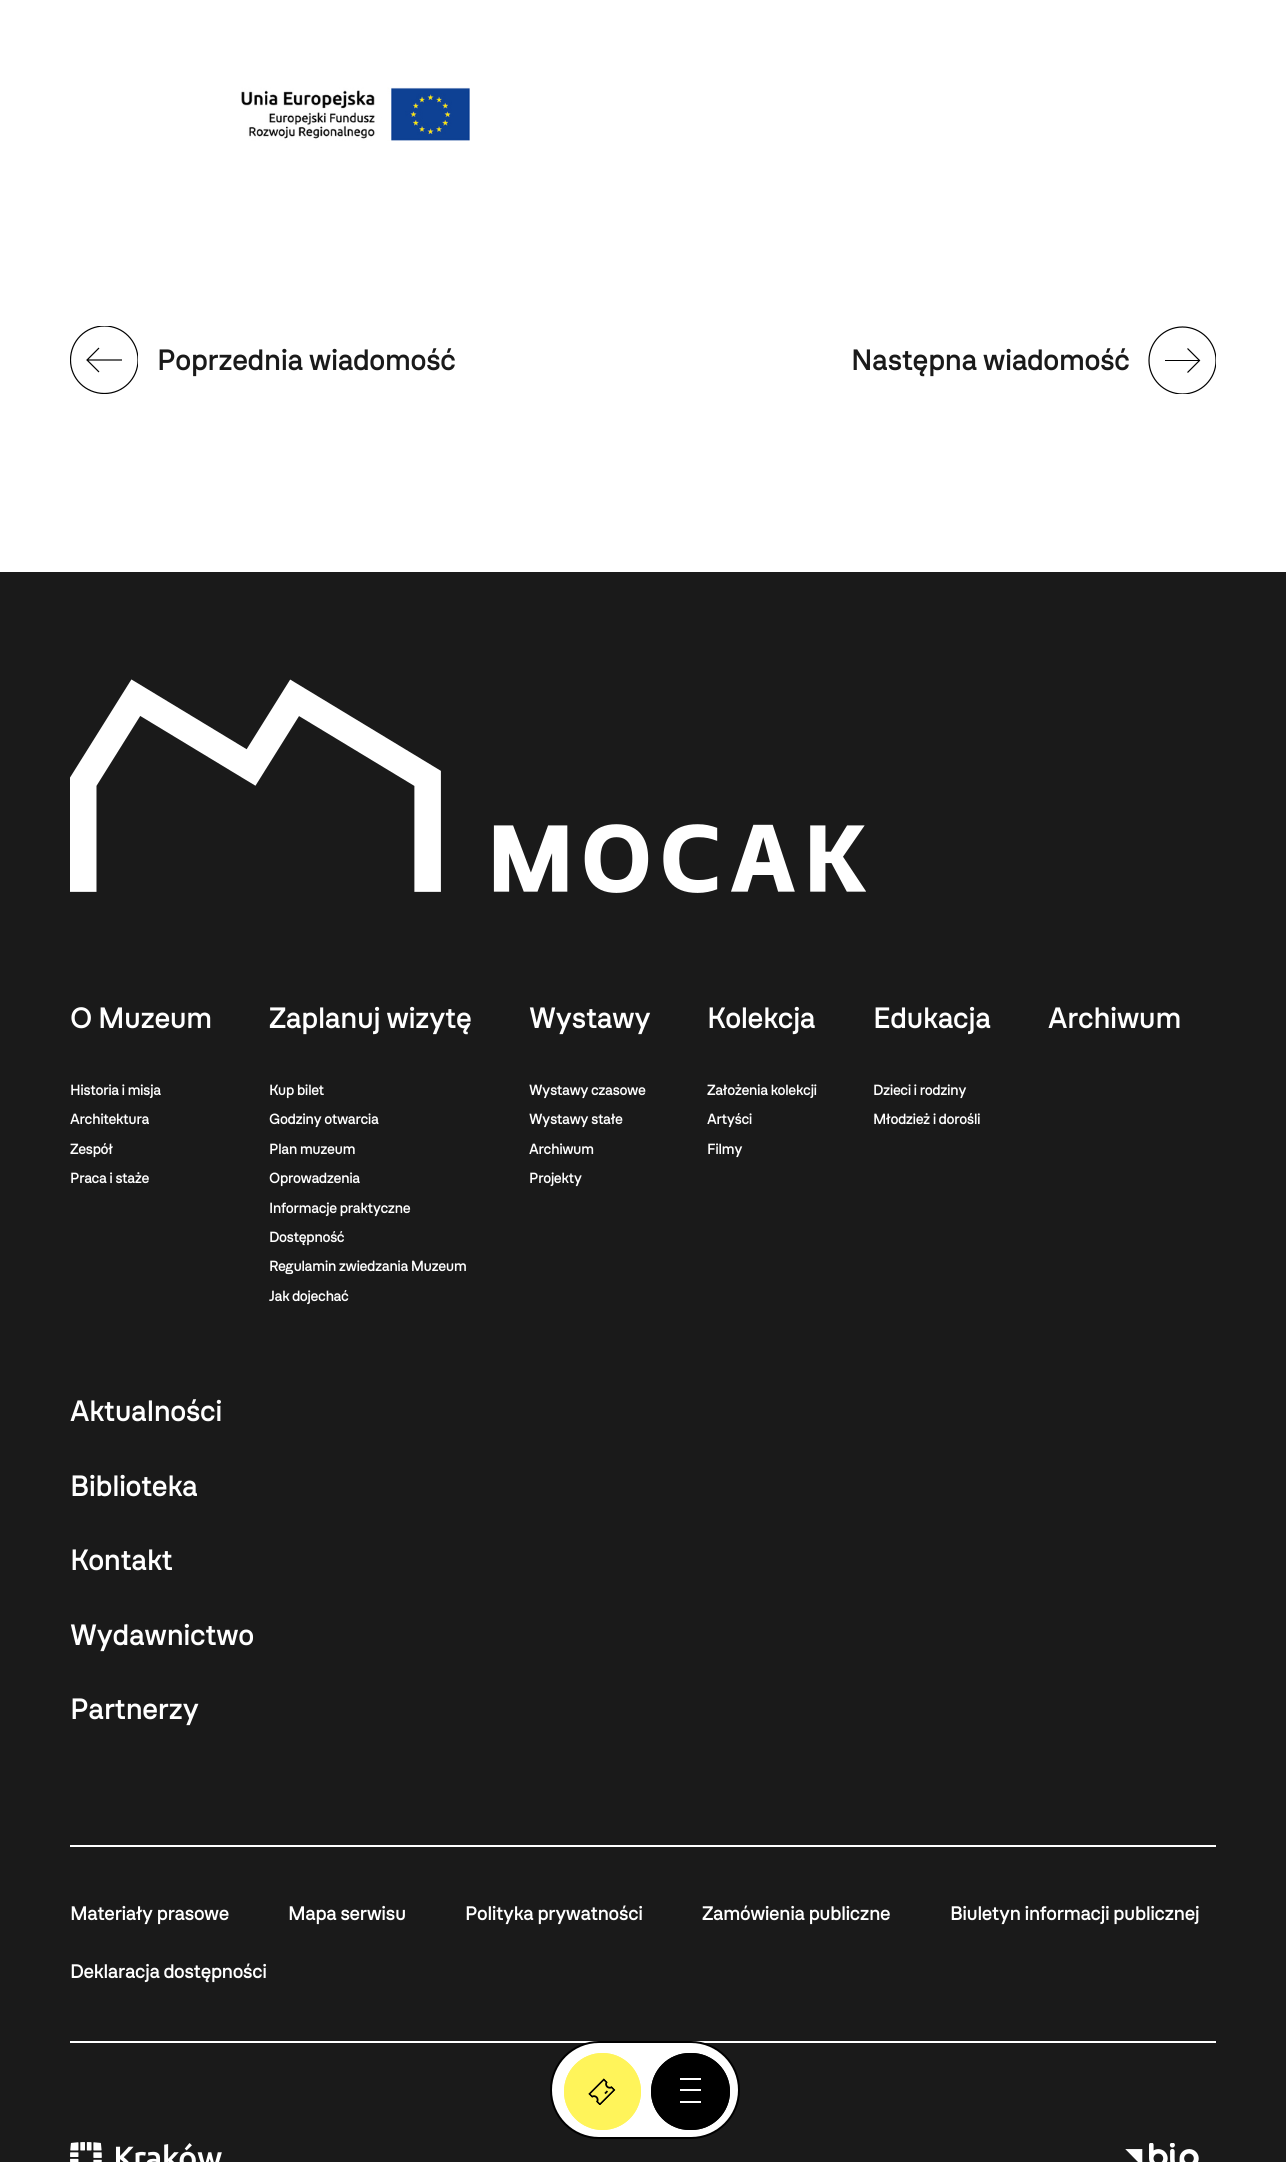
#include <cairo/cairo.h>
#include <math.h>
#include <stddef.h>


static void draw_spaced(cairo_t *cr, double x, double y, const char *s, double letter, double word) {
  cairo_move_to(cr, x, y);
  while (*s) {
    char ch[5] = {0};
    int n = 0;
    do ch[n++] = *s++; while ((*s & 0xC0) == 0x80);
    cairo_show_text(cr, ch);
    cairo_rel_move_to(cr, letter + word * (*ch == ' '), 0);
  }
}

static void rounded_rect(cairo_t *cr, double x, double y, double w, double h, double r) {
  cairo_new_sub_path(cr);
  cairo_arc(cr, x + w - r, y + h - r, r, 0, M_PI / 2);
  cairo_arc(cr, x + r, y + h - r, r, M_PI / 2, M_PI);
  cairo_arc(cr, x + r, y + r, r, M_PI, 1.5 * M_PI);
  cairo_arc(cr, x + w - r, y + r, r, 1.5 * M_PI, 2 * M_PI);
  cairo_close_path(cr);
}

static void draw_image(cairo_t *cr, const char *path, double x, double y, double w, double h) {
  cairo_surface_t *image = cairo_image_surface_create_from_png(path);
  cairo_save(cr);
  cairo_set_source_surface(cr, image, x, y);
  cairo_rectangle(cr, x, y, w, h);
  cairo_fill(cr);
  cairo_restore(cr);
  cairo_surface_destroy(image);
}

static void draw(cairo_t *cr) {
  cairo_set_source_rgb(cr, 1, 1, 1);
  cairo_paint(cr);
  draw_image(cr, "images/1.png", 241, 87, 229, 54);
  cairo_save(cr);
  cairo_rectangle(cr, 70, 326, 68, 68);
  cairo_clip(cr);
  cairo_new_path(cr);
  cairo_move_to(cr, 104.5, 393.5);
  cairo_curve_to(cr, 85.5, 393.5, 70.5, 378.5, 70.5, 360);
  cairo_curve_to(cr, 70.5, 341, 85.5, 326, 104.5, 326);
  cairo_curve_to(cr, 123, 326, 138, 341, 138, 360);
  cairo_curve_to(cr, 138, 378.5, 123, 393.5, 104.5, 393.5);
  cairo_close_path(cr);
  cairo_set_source_rgb(cr, 0, 0, 0);
  cairo_set_line_width(cr, 1.2);
  cairo_stroke(cr);
  cairo_restore(cr);
  cairo_new_path(cr);
  cairo_move_to(cr, 122, 360);
  cairo_line_to(cr, 87, 360);
  cairo_move_to(cr, 99, 372);
  cairo_line_to(cr, 87, 360);
  cairo_line_to(cr, 99, 348);
  cairo_set_source_rgb(cr, 0, 0, 0);
  cairo_set_line_width(cr, 1.2);
  cairo_stroke(cr);
  cairo_save(cr);
  cairo_rectangle(cr, 1148, 326, 68, 68);
  cairo_clip(cr);
  cairo_arc(cr, 1182.5, 360.5, 33.5, 0, 2 * M_PI);
  cairo_stroke(cr);
  cairo_restore(cr);
  cairo_rectangle(cr, 1165, 360, 35, 1);
  cairo_fill(cr);
  cairo_new_path(cr);
  cairo_move_to(cr, 1187.5, 348.5);
  cairo_line_to(cr, 1199.5, 360.5);
  cairo_line_to(cr, 1187.5, 372.5);
  cairo_stroke(cr);
  cairo_set_source_rgb(cr, 26 / 255.0, 26 / 255.0, 26 / 255.0);
  cairo_rectangle(cr, 0, 572, 1286, 1590);
  cairo_fill(cr);
  draw_image(cr, "images/2.png", 70, 679, 796, 214);
  cairo_set_source_rgb(cr, 1, 1, 1);
  cairo_rectangle(cr, 70, 1845, 1146, 2);
  cairo_fill(cr);
  cairo_rectangle(cr, 70, 2041, 1146, 2);
  cairo_fill(cr);
  draw_image(cr, "images/3.png", 70, 2142, 152, 20);
  draw_image(cr, "images/4.png", 1125, 2143, 74, 19);
  rounded_rect(cr, 551, 2042, 188, 96, 48);
  cairo_fill_preserve(cr);
  cairo_set_source_rgb(cr, 0, 0, 0);
  cairo_set_line_width(cr, 2);
  cairo_stroke(cr);
  cairo_set_source_rgb(cr, 1, 244 / 255.0, 90 / 255.0);
  cairo_arc(cr, 602.5, 2091.5, 38.5, 0, 2 * M_PI);
  cairo_fill(cr);
  draw_image(cr, "images/5.png", 588, 2078, 28, 27);
  cairo_arc(cr, 602.5, 2091.5, 36.5, 0, 2 * M_PI);
  cairo_set_line_width(cr, 4);
  cairo_stroke(cr);
  cairo_set_source_rgb(cr, 0, 0, 0);
  rounded_rect(cr, 651, 2053, 79, 77, 38.5);
  cairo_fill(cr);
  cairo_set_source_rgb(cr, 1, 1, 1);
  cairo_rectangle(cr, 680, 2101, 21, 2);
  cairo_fill(cr);
  cairo_rectangle(cr, 680, 2089, 21, 2);
  cairo_fill(cr);
  cairo_rectangle(cr, 680, 2078, 21, 2);
  cairo_fill(cr);
  rounded_rect(cr, 653, 2055, 75, 73, 36.5);
  cairo_set_source_rgb(cr, 0, 0, 0);
  cairo_stroke(cr);
  cairo_select_font_face(cr, "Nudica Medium", CAIRO_FONT_SLANT_NORMAL, CAIRO_FONT_WEIGHT_NORMAL);
  cairo_set_font_size(cr, 29.4);
  cairo_set_source_rgb(cr, 26 / 255.0, 26 / 255.0, 26 / 255.0);
  draw_spaced(cr, 157, 370, "Poprzednia wiadomość", -0.5, 0);
  draw_spaced(cr, 851, 370, "Następna wiadomość", -0.5, 0);
  cairo_set_source_rgb(cr, 1, 1, 1);
  draw_spaced(cr, 70, 1028, "O Muzeum", -0.5, 0);
  cairo_set_font_size(cr, 14.75);
  draw_spaced(cr, 70, 1095, "Historia i misja", -0.5, 0);
  draw_spaced(cr, 70, 1124, "Architektura", -0.5, 0);
  draw_spaced(cr, 70, 1154, "Zespół", -0.5, 0);
  draw_spaced(cr, 70, 1183, "Praca i staże", -0.5, 0);
  cairo_set_font_size(cr, 29.4);
  draw_spaced(cr, 269, 1028, "Zaplanuj wizytę", -0.5, 0);
  cairo_set_font_size(cr, 14.75);
  draw_spaced(cr, 269, 1095, "Kup bilet", -0.5, 0);
  draw_spaced(cr, 269, 1124, "Godziny otwarcia", -0.5, 0);
  draw_spaced(cr, 269, 1154, "Plan muzeum", -0.5, 0);
  draw_spaced(cr, 269, 1183, "Oprowadzenia", -0.5, 0);
  draw_spaced(cr, 269, 1213, "Informacje praktyczne", -0.5, 0);
  draw_spaced(cr, 269, 1242, "Dostępność", -0.5, 0);
  draw_spaced(cr, 269, 1271, "Regulamin zwiedzania Muzeum", -0.5, 0);
  draw_spaced(cr, 269, 1301, "Jak dojechać", -0.5, 0);
  cairo_set_font_size(cr, 29.4);
  draw_spaced(cr, 529, 1028, "Wystawy", -0.5, 0);
  cairo_set_font_size(cr, 14.75);
  draw_spaced(cr, 529, 1095, "Wystawy czasowe", -0.5, 0);
  draw_spaced(cr, 529, 1124, "Wystawy stałe", -0.5, 0);
  draw_spaced(cr, 529, 1154, "Archiwum", -0.5, 0);
  draw_spaced(cr, 529, 1183, "Projekty", -0.5, 0);
  cairo_set_font_size(cr, 29.4);
  draw_spaced(cr, 707, 1028, "Kolekcja", -0.5, 0);
  cairo_set_font_size(cr, 14.75);
  draw_spaced(cr, 707, 1095, "Założenia kolekcji", -0.5, 0);
  draw_spaced(cr, 707, 1124, "Artyści", -0.5, 0);
  draw_spaced(cr, 707, 1154, "Filmy", -0.5, 0);
  cairo_set_font_size(cr, 29.4);
  draw_spaced(cr, 873, 1028, "Edukacja", -0.5, 0);
  cairo_set_font_size(cr, 14.75);
  draw_spaced(cr, 873, 1095, "Dzieci i rodziny", -0.5, 0);
  draw_spaced(cr, 873, 1124, "Młodzież i dorośli", -0.5, 0);
  cairo_set_font_size(cr, 29.4);
  draw_spaced(cr, 1048, 1028, "Archiwum", -0.5, 0);
  draw_spaced(cr, 70, 1421, "Aktualności", -0.5, 0);
  draw_spaced(cr, 70, 1496, "Biblioteka", -0.5, 0);
  draw_spaced(cr, 70, 1570, "Kontakt", -0.5, 0);
  draw_spaced(cr, 70, 1645, "Wydawnictwo", -0.5, 0);
  draw_spaced(cr, 70, 1719, "Partnerzy", -0.5, 0);
  cairo_set_font_size(cr, 19.6);
  draw_spaced(cr, 70, 1920, "Materiały prasowe", -0.5, 0);
  draw_spaced(cr, 288, 1920, "Mapa serwisu", -0.5, 0);
  draw_spaced(cr, 465, 1920, "Polityka prywatności", -0.5, 0);
  draw_spaced(cr, 702, 1920, "Zamówienia publiczne", -0.5, 0);
  draw_spaced(cr, 950, 1920, "Biuletyn informacji publicznej", -0.5, 0);
  draw_spaced(cr, 70, 1978, "Deklaracja dostępności", -0.5, 0);
}

int main(void) {
  cairo_surface_t *surface = cairo_image_surface_create(CAIRO_FORMAT_RGB24, 1286, 2162);
  cairo_t *cr = cairo_create(surface);
  cairo_font_options_t *options = cairo_font_options_create();
  cairo_font_options_set_hint_metrics(options, CAIRO_HINT_METRICS_OFF);
  cairo_font_options_set_hint_style(options, CAIRO_HINT_STYLE_NONE);
  cairo_set_font_options(cr, options);
  cairo_set_miter_limit(cr, 4);
  draw(cr);
  cairo_surface_write_to_png(surface, "out.png");
  cairo_font_options_destroy(options);
  cairo_destroy(cr);
  cairo_surface_destroy(surface);
  return 0;
}
